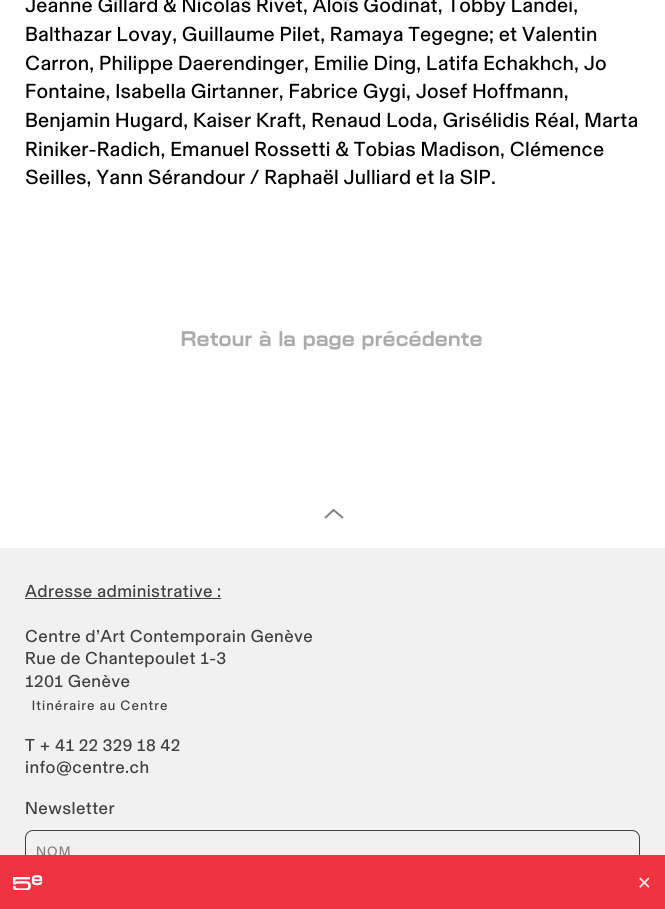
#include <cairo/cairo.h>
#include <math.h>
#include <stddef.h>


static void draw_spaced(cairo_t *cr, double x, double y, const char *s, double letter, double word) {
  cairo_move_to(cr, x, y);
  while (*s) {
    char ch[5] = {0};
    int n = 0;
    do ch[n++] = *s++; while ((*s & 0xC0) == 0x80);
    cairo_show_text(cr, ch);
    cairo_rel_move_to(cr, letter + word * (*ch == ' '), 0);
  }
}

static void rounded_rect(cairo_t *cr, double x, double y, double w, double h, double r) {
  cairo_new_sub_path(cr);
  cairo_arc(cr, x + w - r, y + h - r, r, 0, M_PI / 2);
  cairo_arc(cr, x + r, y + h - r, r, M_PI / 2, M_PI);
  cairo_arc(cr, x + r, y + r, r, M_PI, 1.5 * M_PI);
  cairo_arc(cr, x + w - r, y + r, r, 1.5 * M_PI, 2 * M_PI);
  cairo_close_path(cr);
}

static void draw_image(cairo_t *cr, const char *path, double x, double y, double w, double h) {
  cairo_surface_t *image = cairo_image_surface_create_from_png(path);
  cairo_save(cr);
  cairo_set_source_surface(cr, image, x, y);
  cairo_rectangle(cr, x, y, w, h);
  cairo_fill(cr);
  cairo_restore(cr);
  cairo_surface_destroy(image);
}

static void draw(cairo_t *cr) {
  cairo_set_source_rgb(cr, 1, 1, 1);
  cairo_paint(cr);
  cairo_new_path(cr);
  cairo_move_to(cr, 325, 518);
  cairo_line_to(cr, 333.5, 510);
  cairo_line_to(cr, 343, 518);
  cairo_set_source_rgb(cr, 128 / 255.0, 128 / 255.0, 128 / 255.0);
  cairo_stroke(cr);
  cairo_set_source_rgb(cr, 241 / 255.0, 241 / 255.0, 241 / 255.0);
  cairo_rectangle(cr, 0, 548, 665, 307);
  cairo_fill(cr);
  cairo_set_source_rgb(cr, 64 / 255.0, 64 / 255.0, 64 / 255.0);
  cairo_rectangle(cr, 25, 598, 196, 1);
  cairo_fill(cr);
  rounded_rect(cr, 25.5, 830.5, 614, 42, 7.5);
  cairo_set_line_width(cr, 1);
  cairo_stroke(cr);
  cairo_select_font_face(cr, "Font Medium", CAIRO_FONT_SLANT_NORMAL, CAIRO_FONT_WEIGHT_NORMAL);
  cairo_set_font_size(cr, 20.6);
  cairo_set_source_rgb(cr, 0, 0, 0);
  draw_spaced(cr, 25, 12, "Jeanne Gillard & Nicolas Rivet, Aloïs Godinat, Tobby Landei,", 0.15, 0);
  draw_spaced(cr, 25, 41, "Balthazar Lovay, Guillaume Pilet, Ramaya Tegegne; et Valentin", 0.15, 0);
  draw_spaced(cr, 25, 70, "Carron, Philippe Daerendinger, Emilie Ding, Latifa Echakhch, Jo", 0.15, 0);
  draw_spaced(cr, 25, 98, "Fontaine, Isabella Girtanner, Fabrice Gygi, Josef Hoffmann,", 0.15, 0);
  draw_spaced(cr, 25, 127, "Benjamin Hugard, Kaiser Kraft, Renaud Loda, Grisélidis Réal, Marta", 0.15, 0);
  draw_spaced(cr, 25, 156, "Riniker-Radich, Emanuel Rossetti & Tobias Madison, Clémence", 0.15, 0);
  draw_spaced(cr, 25, 184, "Seilles, Yann Sérandour / Raphaël Julliard et la SIP.", 0.15, 0);
  cairo_select_font_face(cr, "Font", CAIRO_FONT_SLANT_NORMAL, CAIRO_FONT_WEIGHT_BOLD);
  cairo_set_source_rgb(cr, 171 / 255.0, 171 / 255.0, 171 / 255.0);
  draw_spaced(cr, 170, 346, " Retour à la page précédente", 0.15, 0);
  cairo_select_font_face(cr, "Font Medium", CAIRO_FONT_SLANT_NORMAL, CAIRO_FONT_WEIGHT_NORMAL);
  cairo_set_font_size(cr, 17.5);
  cairo_set_source_rgb(cr, 64 / 255.0, 64 / 255.0, 64 / 255.0);
  draw_spaced(cr, 25, 597, "Adresse administrative :", 0.4, 0);
  draw_spaced(cr, 25, 642, "Centre d’Art Contemporain Genève", 0.4, 0);
  cairo_select_font_face(cr, "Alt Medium", CAIRO_FONT_SLANT_NORMAL, CAIRO_FONT_WEIGHT_NORMAL);
  draw_spaced(cr, 25, 664, "Rue de Chantepoulet 1-3", 0.4, 0);
  draw_spaced(cr, 25, 687, "1201 Genève", 0.4, 0);
  cairo_select_font_face(cr, "Font Medium", CAIRO_FONT_SLANT_NORMAL, CAIRO_FONT_WEIGHT_NORMAL);
  cairo_set_font_size(cr, 13.75);
  draw_spaced(cr, 25, 710, " Itinéraire au Centre", 1, 0);
  cairo_select_font_face(cr, "Alt Medium", CAIRO_FONT_SLANT_NORMAL, CAIRO_FONT_WEIGHT_NORMAL);
  cairo_set_font_size(cr, 17.5);
  draw_spaced(cr, 25, 751, "T + 41 22 329 18 42", 0.4, 0);
  cairo_select_font_face(cr, "Font Medium", CAIRO_FONT_SLANT_NORMAL, CAIRO_FONT_WEIGHT_NORMAL);
  draw_spaced(cr, 25, 773, "info@centre.ch", 0.4, 0);
  draw_spaced(cr, 25, 814, "Newsletter", 0.4, 0);
  cairo_set_font_size(cr, 13.75);
  cairo_set_source_rgb(cr, 128 / 255.0, 128 / 255.0, 128 / 255.0);
  draw_spaced(cr, 36, 856, "NOM", 1, 0);
  cairo_set_source_rgb(cr, 239 / 255.0, 51 / 255.0, 64 / 255.0);
  cairo_rectangle(cr, 0, 855, 665, 54);
  cairo_fill(cr);
  draw_image(cr, "images/1.png", 13, 875, 30, 15);
  cairo_select_font_face(cr, "DejaVu Sans", CAIRO_FONT_SLANT_NORMAL, CAIRO_FONT_WEIGHT_NORMAL);
  cairo_set_font_size(cr, 17.5);
  cairo_set_source_rgb(cr, 241 / 255.0, 241 / 255.0, 241 / 255.0);
  draw_spaced(cr, 637, 889, "✕", 0.4, 0);
}

int main(void) {
  cairo_surface_t *surface = cairo_image_surface_create(CAIRO_FORMAT_RGB24, 665, 909);
  cairo_t *cr = cairo_create(surface);
  cairo_font_options_t *options = cairo_font_options_create();
  cairo_font_options_set_hint_metrics(options, CAIRO_HINT_METRICS_OFF);
  cairo_font_options_set_hint_style(options, CAIRO_HINT_STYLE_NONE);
  cairo_set_font_options(cr, options);
  cairo_set_miter_limit(cr, 4);
  draw(cr);
  cairo_surface_write_to_png(surface, "out.png");
  cairo_font_options_destroy(options);
  cairo_destroy(cr);
  cairo_surface_destroy(surface);
  return 0;
}
